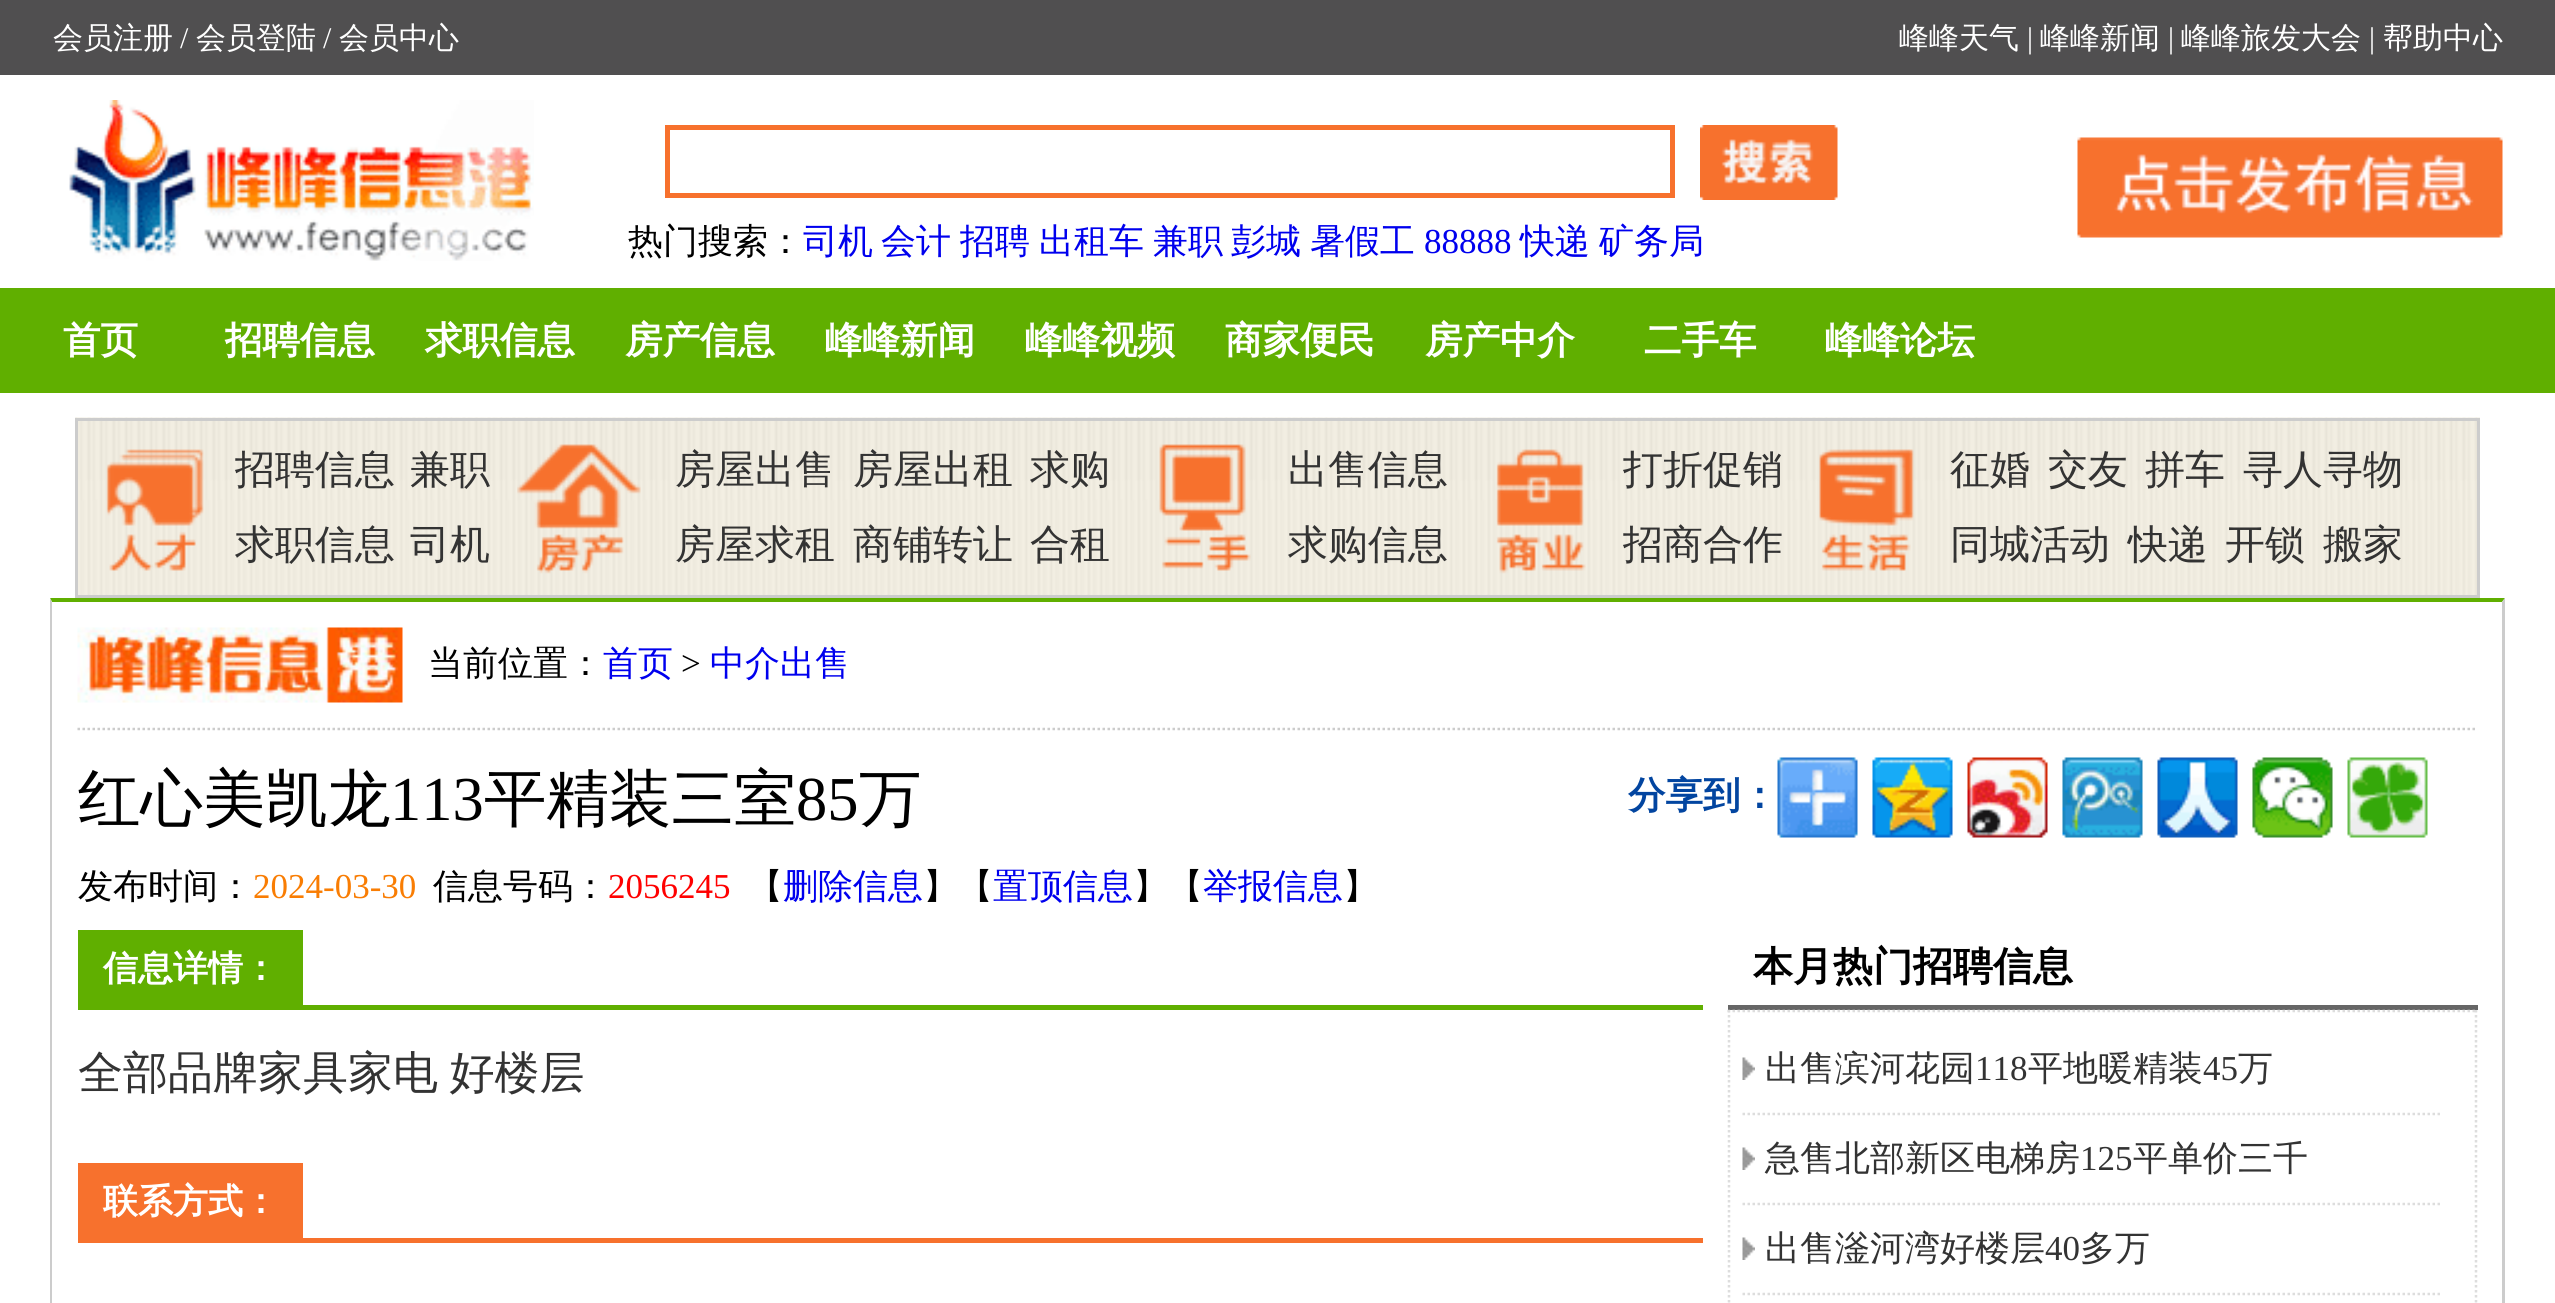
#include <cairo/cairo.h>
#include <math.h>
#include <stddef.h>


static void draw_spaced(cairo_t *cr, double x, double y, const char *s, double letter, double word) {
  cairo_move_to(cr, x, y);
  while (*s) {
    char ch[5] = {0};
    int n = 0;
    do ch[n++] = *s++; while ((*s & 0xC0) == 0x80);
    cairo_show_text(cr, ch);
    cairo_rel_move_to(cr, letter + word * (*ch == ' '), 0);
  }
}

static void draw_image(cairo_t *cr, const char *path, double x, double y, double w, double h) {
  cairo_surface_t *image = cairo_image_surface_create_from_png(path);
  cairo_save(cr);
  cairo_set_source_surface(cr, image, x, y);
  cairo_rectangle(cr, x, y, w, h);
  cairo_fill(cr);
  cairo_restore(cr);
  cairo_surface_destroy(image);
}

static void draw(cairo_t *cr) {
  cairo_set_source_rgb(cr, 1, 1, 1);
  cairo_paint(cr);
  cairo_set_source_rgb(cr, 80 / 255.0, 79 / 255.0, 80 / 255.0);
  cairo_rectangle(cr, 0, 0, 2555, 75);
  cairo_fill(cr);
  draw_image(cr, "images/1.png", 69, 100, 465, 161);
  cairo_rectangle(cr, 667.5, 127.5, 1005, 68);
  cairo_set_source_rgb(cr, 247 / 255.0, 113 / 255.0, 45 / 255.0);
  cairo_set_line_width(cr, 5);
  cairo_stroke(cr);
  draw_image(cr, "images/2.png", 1700, 125, 138, 75);
  draw_image(cr, "images/3.png", 2077, 137, 426, 101);
  cairo_set_source_rgb(cr, 96 / 255.0, 175 / 255.0, 0);
  cairo_rectangle(cr, 0, 288, 2555, 105);
  cairo_fill(cr);
  draw_image(cr, "images/4.png", 75, 417, 2405, 178);
  cairo_rectangle(cr, 76.5, 419.5, 2402, 177);
  cairo_set_source_rgb(cr, 204 / 255.0, 204 / 255.0, 204 / 255.0);
  cairo_set_line_width(cr, 3);
  cairo_stroke(cr);
  draw_image(cr, "images/5.png", 106, 449, 98, 122);
  draw_image(cr, "images/6.png", 517, 444, 124, 130);
  draw_image(cr, "images/7.png", 1159, 444, 92, 127);
  draw_image(cr, "images/8.png", 1496, 449, 90, 125);
  draw_image(cr, "images/9.png", 1819, 449, 95, 122);
  cairo_set_source_rgb(cr, 96 / 255.0, 175 / 255.0, 0);
  cairo_new_path(cr);
  cairo_move_to(cr, 50, 598);
  cairo_line_to(cr, 2505, 598);
  cairo_line_to(cr, 2502, 602);
  cairo_line_to(cr, 52, 602);
  cairo_close_path(cr);
  cairo_fill(cr);
  cairo_set_source_rgb(cr, 204 / 255.0, 204 / 255.0, 204 / 255.0);
  cairo_new_path(cr);
  cairo_move_to(cr, 2505, 598);
  cairo_line_to(cr, 2505, 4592);
  cairo_line_to(cr, 2502, 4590);
  cairo_line_to(cr, 2502, 602);
  cairo_close_path(cr);
  cairo_fill(cr);
  cairo_new_path(cr);
  cairo_move_to(cr, 50, 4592);
  cairo_line_to(cr, 50, 598);
  cairo_line_to(cr, 52, 602);
  cairo_line_to(cr, 52, 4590);
  cairo_close_path(cr);
  cairo_fill(cr);
  draw_image(cr, "images/10.png", 77, 627, 326, 76);
  cairo_new_path(cr);
  cairo_move_to(cr, 77.5, 729);
  cairo_line_to(cr, 2477.5, 729);
  cairo_set_line_width(cr, 2.5);
  cairo_set_dash(cr, (double[]){2.5, 2.5}, 2, 0);
  cairo_stroke(cr);
  draw_image(cr, "images/11.png", 1777, 757, 81, 81);
  draw_image(cr, "images/12.png", 1872, 757, 81, 81);
  draw_image(cr, "images/13.png", 1967, 757, 81, 81);
  draw_image(cr, "images/14.png", 2062, 757, 81, 81);
  draw_image(cr, "images/15.png", 2157, 757, 81, 81);
  draw_image(cr, "images/16.png", 2252, 757, 81, 81);
  draw_image(cr, "images/17.png", 2347, 757, 81, 81);
  cairo_set_source_rgb(cr, 96 / 255.0, 175 / 255.0, 0);
  cairo_rectangle(cr, 78, 1005, 1625, 5);
  cairo_fill(cr);
  cairo_rectangle(cr, 78, 930, 225, 75);
  cairo_fill(cr);
  cairo_set_source_rgb(cr, 247 / 255.0, 113 / 255.0, 45 / 255.0);
  cairo_rectangle(cr, 78, 1238, 1625, 5);
  cairo_fill(cr);
  cairo_rectangle(cr, 78, 1163, 225, 75);
  cairo_fill(cr);
  cairo_set_source_rgb(cr, 102 / 255.0, 102 / 255.0, 102 / 255.0);
  cairo_rectangle(cr, 1728, 1005, 750, 5);
  cairo_fill(cr);
  cairo_new_path(cr);
  cairo_move_to(cr, 1727.5, 1011);
  cairo_line_to(cr, 2477.5, 1011);
  cairo_set_source_rgb(cr, 221 / 255.0, 221 / 255.0, 221 / 255.0);
  cairo_stroke(cr);
  cairo_new_path(cr);
  cairo_move_to(cr, 2476, 1010);
  cairo_line_to(cr, 2476, 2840);
  cairo_stroke(cr);
  cairo_new_path(cr);
  cairo_move_to(cr, 1729, 1010);
  cairo_line_to(cr, 1729, 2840);
  cairo_stroke(cr);
  draw_image(cr, "images/18.png", 1742, 1057, 13, 23);
  cairo_new_path(cr);
  cairo_move_to(cr, 1742.5, 1114);
  cairo_line_to(cr, 2442.5, 1114);
  cairo_stroke(cr);
  draw_image(cr, "images/18.png", 1742, 1147, 13, 23);
  cairo_new_path(cr);
  cairo_move_to(cr, 1742.5, 1204);
  cairo_line_to(cr, 2442.5, 1204);
  cairo_stroke(cr);
  draw_image(cr, "images/18.png", 1742, 1237, 13, 23);
  cairo_new_path(cr);
  cairo_move_to(cr, 1742.5, 1294);
  cairo_line_to(cr, 2442.5, 1294);
  cairo_stroke(cr);
  cairo_select_font_face(cr, "WenQuanYi Zen Hei Medium", CAIRO_FONT_SLANT_NORMAL, CAIRO_FONT_WEIGHT_NORMAL);
  cairo_set_font_size(cr, 30);
  cairo_set_source_rgb(cr, 1, 1, 1);
  cairo_move_to(cr, 53, 48);
  cairo_show_text(cr, "会员注册");
  cairo_select_font_face(cr, "Liberation Serif", CAIRO_FONT_SLANT_NORMAL, CAIRO_FONT_WEIGHT_NORMAL);
  cairo_move_to(cr, 180, 48);
  cairo_show_text(cr, "/");
  cairo_select_font_face(cr, "WenQuanYi Zen Hei Medium", CAIRO_FONT_SLANT_NORMAL, CAIRO_FONT_WEIGHT_NORMAL);
  cairo_move_to(cr, 196, 48);
  cairo_show_text(cr, "会员登陆");
  cairo_select_font_face(cr, "Liberation Serif", CAIRO_FONT_SLANT_NORMAL, CAIRO_FONT_WEIGHT_NORMAL);
  cairo_move_to(cr, 323, 48);
  cairo_show_text(cr, "/");
  cairo_select_font_face(cr, "WenQuanYi Zen Hei Medium", CAIRO_FONT_SLANT_NORMAL, CAIRO_FONT_WEIGHT_NORMAL);
  cairo_move_to(cr, 339, 48);
  cairo_show_text(cr, "会员中心");
  cairo_move_to(cr, 1899, 48);
  cairo_show_text(cr, "峰峰天气");
  cairo_select_font_face(cr, "Liberation Serif", CAIRO_FONT_SLANT_NORMAL, CAIRO_FONT_WEIGHT_NORMAL);
  cairo_move_to(cr, 2027, 48);
  cairo_show_text(cr, "|");
  cairo_select_font_face(cr, "WenQuanYi Zen Hei Medium", CAIRO_FONT_SLANT_NORMAL, CAIRO_FONT_WEIGHT_NORMAL);
  cairo_move_to(cr, 2040, 48);
  cairo_show_text(cr, "峰峰新闻");
  cairo_select_font_face(cr, "Liberation Serif", CAIRO_FONT_SLANT_NORMAL, CAIRO_FONT_WEIGHT_NORMAL);
  cairo_move_to(cr, 2168, 48);
  cairo_show_text(cr, "|");
  cairo_select_font_face(cr, "WenQuanYi Zen Hei Medium", CAIRO_FONT_SLANT_NORMAL, CAIRO_FONT_WEIGHT_NORMAL);
  cairo_move_to(cr, 2181, 48);
  cairo_show_text(cr, "峰峰旅发大会");
  cairo_select_font_face(cr, "Liberation Serif", CAIRO_FONT_SLANT_NORMAL, CAIRO_FONT_WEIGHT_NORMAL);
  cairo_move_to(cr, 2369, 48);
  cairo_show_text(cr, "|");
  cairo_select_font_face(cr, "WenQuanYi Zen Hei Medium", CAIRO_FONT_SLANT_NORMAL, CAIRO_FONT_WEIGHT_NORMAL);
  cairo_move_to(cr, 2383, 48);
  cairo_show_text(cr, "帮助中心");
  cairo_set_font_size(cr, 35);
  cairo_set_source_rgb(cr, 0, 0, 0);
  cairo_move_to(cr, 628, 253);
  cairo_show_text(cr, "热门搜索：");
  cairo_set_source_rgb(cr, 0, 0, 238 / 255.0);
  cairo_move_to(cr, 803, 253);
  cairo_show_text(cr, "司机");
  cairo_move_to(cr, 881, 253);
  cairo_show_text(cr, "会计");
  cairo_move_to(cr, 960, 253);
  cairo_show_text(cr, "招聘");
  cairo_move_to(cr, 1039, 253);
  cairo_show_text(cr, "出租车");
  cairo_move_to(cr, 1153, 253);
  cairo_show_text(cr, "兼职");
  cairo_move_to(cr, 1231, 253);
  cairo_show_text(cr, "彭城");
  cairo_move_to(cr, 1310, 253);
  cairo_show_text(cr, "暑假工");
  cairo_select_font_face(cr, "Liberation Serif", CAIRO_FONT_SLANT_NORMAL, CAIRO_FONT_WEIGHT_NORMAL);
  cairo_move_to(cr, 1424, 253);
  cairo_show_text(cr, "88888");
  cairo_select_font_face(cr, "WenQuanYi Zen Hei Medium", CAIRO_FONT_SLANT_NORMAL, CAIRO_FONT_WEIGHT_NORMAL);
  cairo_move_to(cr, 1520, 253);
  cairo_show_text(cr, "快递");
  cairo_move_to(cr, 1599, 253);
  cairo_show_text(cr, "矿务局");
  cairo_select_font_face(cr, "WenQuanYi Zen Hei", CAIRO_FONT_SLANT_NORMAL, CAIRO_FONT_WEIGHT_BOLD);
  cairo_set_font_size(cr, 37.5);
  cairo_set_source_rgb(cr, 1, 1, 1);
  cairo_move_to(cr, 63, 353);
  cairo_show_text(cr, "首页");
  cairo_move_to(cr, 225, 353);
  cairo_show_text(cr, "招聘信息");
  cairo_move_to(cr, 425, 353);
  cairo_show_text(cr, "求职信息");
  cairo_move_to(cr, 625, 353);
  cairo_show_text(cr, "房产信息");
  cairo_move_to(cr, 825, 353);
  cairo_show_text(cr, "峰峰新闻");
  cairo_move_to(cr, 1025, 353);
  cairo_show_text(cr, "峰峰视频");
  cairo_move_to(cr, 1225, 353);
  cairo_show_text(cr, "商家便民");
  cairo_move_to(cr, 1425, 353);
  cairo_show_text(cr, "房产中介");
  cairo_move_to(cr, 1644, 353);
  cairo_show_text(cr, "二手车");
  cairo_move_to(cr, 1825, 353);
  cairo_show_text(cr, "峰峰论坛");
  cairo_select_font_face(cr, "WenQuanYi Zen Hei Medium", CAIRO_FONT_SLANT_NORMAL, CAIRO_FONT_WEIGHT_NORMAL);
  cairo_set_font_size(cr, 40);
  cairo_set_source_rgb(cr, 51 / 255.0, 51 / 255.0, 51 / 255.0);
  cairo_move_to(cr, 235, 483);
  cairo_show_text(cr, "招聘信息");
  cairo_move_to(cr, 410, 483);
  cairo_show_text(cr, "兼职");
  cairo_move_to(cr, 235, 558);
  cairo_show_text(cr, "求职信息");
  cairo_move_to(cr, 410, 558);
  cairo_show_text(cr, "司机");
  cairo_move_to(cr, 675, 483);
  cairo_show_text(cr, "房屋出售");
  cairo_move_to(cr, 853, 483);
  cairo_show_text(cr, "房屋出租");
  cairo_move_to(cr, 1030, 483);
  cairo_show_text(cr, "求购");
  cairo_move_to(cr, 675, 558);
  cairo_show_text(cr, "房屋求租");
  cairo_move_to(cr, 853, 558);
  cairo_show_text(cr, "商铺转让");
  cairo_move_to(cr, 1030, 558);
  cairo_show_text(cr, "合租");
  cairo_move_to(cr, 1288, 483);
  cairo_show_text(cr, "出售信息");
  cairo_move_to(cr, 1288, 558);
  cairo_show_text(cr, "求购信息");
  cairo_move_to(cr, 1623, 483);
  cairo_show_text(cr, "打折促销");
  cairo_move_to(cr, 1623, 558);
  cairo_show_text(cr, "招商合作");
  cairo_move_to(cr, 1950, 483);
  cairo_show_text(cr, "征婚");
  cairo_move_to(cr, 2048, 483);
  cairo_show_text(cr, "交友");
  cairo_move_to(cr, 2145, 483);
  cairo_show_text(cr, "拼车");
  cairo_move_to(cr, 2243, 483);
  cairo_show_text(cr, "寻人寻物");
  cairo_move_to(cr, 1950, 558);
  cairo_show_text(cr, "同城活动");
  cairo_move_to(cr, 2128, 558);
  cairo_show_text(cr, "快递");
  cairo_move_to(cr, 2225, 558);
  cairo_show_text(cr, "开锁");
  cairo_move_to(cr, 2323, 558);
  cairo_show_text(cr, "搬家");
  cairo_set_font_size(cr, 35);
  cairo_set_source_rgb(cr, 0, 0, 0);
  cairo_move_to(cr, 428, 675);
  cairo_show_text(cr, "当前位置：");
  cairo_set_source_rgb(cr, 0, 0, 238 / 255.0);
  cairo_move_to(cr, 603, 675);
  cairo_show_text(cr, "首页");
  cairo_select_font_face(cr, "Liberation Serif", CAIRO_FONT_SLANT_NORMAL, CAIRO_FONT_WEIGHT_NORMAL);
  cairo_set_source_rgb(cr, 0, 0, 0);
  cairo_move_to(cr, 681, 675);
  cairo_show_text(cr, ">");
  cairo_select_font_face(cr, "WenQuanYi Zen Hei Medium", CAIRO_FONT_SLANT_NORMAL, CAIRO_FONT_WEIGHT_NORMAL);
  cairo_set_source_rgb(cr, 0, 0, 238 / 255.0);
  cairo_move_to(cr, 710, 675);
  cairo_show_text(cr, "中介出售");
  cairo_set_font_size(cr, 62.5);
  cairo_set_source_rgb(cr, 0, 0, 0);
  cairo_move_to(cr, 78, 820);
  cairo_show_text(cr, "红心美凯龙");
  cairo_select_font_face(cr, "Liberation Serif", CAIRO_FONT_SLANT_NORMAL, CAIRO_FONT_WEIGHT_NORMAL);
  cairo_move_to(cr, 390, 820);
  cairo_show_text(cr, "113");
  cairo_select_font_face(cr, "WenQuanYi Zen Hei Medium", CAIRO_FONT_SLANT_NORMAL, CAIRO_FONT_WEIGHT_NORMAL);
  cairo_move_to(cr, 484, 820);
  cairo_show_text(cr, "平精装三室");
  cairo_select_font_face(cr, "Liberation Serif", CAIRO_FONT_SLANT_NORMAL, CAIRO_FONT_WEIGHT_NORMAL);
  cairo_move_to(cr, 796, 820);
  cairo_show_text(cr, "85");
  cairo_select_font_face(cr, "WenQuanYi Zen Hei Medium", CAIRO_FONT_SLANT_NORMAL, CAIRO_FONT_WEIGHT_NORMAL);
  cairo_move_to(cr, 859, 820);
  cairo_show_text(cr, "万");
  cairo_select_font_face(cr, "WenQuanYi Zen Hei", CAIRO_FONT_SLANT_NORMAL, CAIRO_FONT_WEIGHT_BOLD);
  cairo_set_font_size(cr, 37.5);
  cairo_set_source_rgb(cr, 2 / 255.0, 69 / 255.0, 160 / 255.0);
  cairo_move_to(cr, 1628, 808);
  cairo_show_text(cr, "分享到：");
  cairo_select_font_face(cr, "WenQuanYi Zen Hei Medium", CAIRO_FONT_SLANT_NORMAL, CAIRO_FONT_WEIGHT_NORMAL);
  cairo_set_font_size(cr, 35);
  cairo_set_source_rgb(cr, 0, 0, 0);
  cairo_move_to(cr, 78, 898);
  cairo_show_text(cr, "发布时间：");
  cairo_select_font_face(cr, "Liberation Serif", CAIRO_FONT_SLANT_NORMAL, CAIRO_FONT_WEIGHT_NORMAL);
  cairo_set_source_rgb(cr, 249 / 255.0, 125 / 255.0, 3 / 255.0);
  cairo_move_to(cr, 253, 898);
  cairo_show_text(cr, "2024-03-30");
  cairo_select_font_face(cr, "WenQuanYi Zen Hei Medium", CAIRO_FONT_SLANT_NORMAL, CAIRO_FONT_WEIGHT_NORMAL);
  cairo_set_source_rgb(cr, 0, 0, 0);
  cairo_move_to(cr, 433, 898);
  cairo_show_text(cr, "信息号码：");
  cairo_select_font_face(cr, "Liberation Serif", CAIRO_FONT_SLANT_NORMAL, CAIRO_FONT_WEIGHT_NORMAL);
  cairo_set_source_rgb(cr, 1, 0, 0);
  cairo_move_to(cr, 608, 898);
  cairo_show_text(cr, "2056245");
  cairo_select_font_face(cr, "WenQuanYi Zen Hei Medium", CAIRO_FONT_SLANT_NORMAL, CAIRO_FONT_WEIGHT_NORMAL);
  cairo_set_source_rgb(cr, 0, 0, 0);
  cairo_move_to(cr, 748, 898);
  cairo_show_text(cr, "【");
  cairo_set_source_rgb(cr, 0, 0, 238 / 255.0);
  cairo_move_to(cr, 783, 898);
  cairo_show_text(cr, "删除信息");
  cairo_set_source_rgb(cr, 0, 0, 0);
  cairo_move_to(cr, 923, 898);
  cairo_show_text(cr, "】【");
  cairo_set_source_rgb(cr, 0, 0, 238 / 255.0);
  cairo_move_to(cr, 993, 898);
  cairo_show_text(cr, "置顶信息");
  cairo_set_source_rgb(cr, 0, 0, 0);
  cairo_move_to(cr, 1133, 898);
  cairo_show_text(cr, "】【");
  cairo_set_source_rgb(cr, 0, 0, 238 / 255.0);
  cairo_move_to(cr, 1203, 898);
  cairo_show_text(cr, "举报信息");
  cairo_set_source_rgb(cr, 0, 0, 0);
  cairo_move_to(cr, 1343, 898);
  cairo_show_text(cr, "】");
  cairo_select_font_face(cr, "WenQuanYi Zen Hei", CAIRO_FONT_SLANT_NORMAL, CAIRO_FONT_WEIGHT_BOLD);
  cairo_set_source_rgb(cr, 1, 1, 1);
  cairo_move_to(cr, 103, 980);
  cairo_show_text(cr, "信息详情：");
  cairo_select_font_face(cr, "WenQuanYi Zen Hei Medium", CAIRO_FONT_SLANT_NORMAL, CAIRO_FONT_WEIGHT_NORMAL);
  cairo_set_font_size(cr, 45);
  cairo_set_source_rgb(cr, 51 / 255.0, 51 / 255.0, 51 / 255.0);
  draw_spaced(cr, 78, 1088, "全部品牌家具家电 好楼层", 0, -2);
  cairo_select_font_face(cr, "WenQuanYi Zen Hei", CAIRO_FONT_SLANT_NORMAL, CAIRO_FONT_WEIGHT_BOLD);
  cairo_set_font_size(cr, 35);
  cairo_set_source_rgb(cr, 1, 1, 1);
  cairo_move_to(cr, 103, 1213);
  cairo_show_text(cr, "联系方式：");
  cairo_set_font_size(cr, 40);
  cairo_set_source_rgb(cr, 0, 0, 0);
  cairo_move_to(cr, 1753, 980);
  cairo_show_text(cr, "本月热门招聘信息");
  cairo_select_font_face(cr, "WenQuanYi Zen Hei Medium", CAIRO_FONT_SLANT_NORMAL, CAIRO_FONT_WEIGHT_NORMAL);
  cairo_set_font_size(cr, 35);
  cairo_set_source_rgb(cr, 51 / 255.0, 51 / 255.0, 51 / 255.0);
  cairo_move_to(cr, 1765, 1080);
  cairo_show_text(cr, "出售滨河花园");
  cairo_select_font_face(cr, "Liberation Serif", CAIRO_FONT_SLANT_NORMAL, CAIRO_FONT_WEIGHT_NORMAL);
  cairo_move_to(cr, 1975, 1080);
  cairo_show_text(cr, "118");
  cairo_select_font_face(cr, "WenQuanYi Zen Hei Medium", CAIRO_FONT_SLANT_NORMAL, CAIRO_FONT_WEIGHT_NORMAL);
  cairo_move_to(cr, 2028, 1080);
  cairo_show_text(cr, "平地暖精装");
  cairo_select_font_face(cr, "Liberation Serif", CAIRO_FONT_SLANT_NORMAL, CAIRO_FONT_WEIGHT_NORMAL);
  cairo_move_to(cr, 2203, 1080);
  cairo_show_text(cr, "45");
  cairo_select_font_face(cr, "WenQuanYi Zen Hei Medium", CAIRO_FONT_SLANT_NORMAL, CAIRO_FONT_WEIGHT_NORMAL);
  cairo_move_to(cr, 2238, 1080);
  cairo_show_text(cr, "万");
  cairo_move_to(cr, 1765, 1170);
  cairo_show_text(cr, "急售北部新区电梯房");
  cairo_select_font_face(cr, "Liberation Serif", CAIRO_FONT_SLANT_NORMAL, CAIRO_FONT_WEIGHT_NORMAL);
  cairo_move_to(cr, 2080, 1170);
  cairo_show_text(cr, "125");
  cairo_select_font_face(cr, "WenQuanYi Zen Hei Medium", CAIRO_FONT_SLANT_NORMAL, CAIRO_FONT_WEIGHT_NORMAL);
  cairo_move_to(cr, 2133, 1170);
  cairo_show_text(cr, "平单价三千");
  cairo_move_to(cr, 1765, 1260);
  cairo_show_text(cr, "出售滏河湾好楼层");
  cairo_select_font_face(cr, "Liberation Serif", CAIRO_FONT_SLANT_NORMAL, CAIRO_FONT_WEIGHT_NORMAL);
  cairo_move_to(cr, 2045, 1260);
  cairo_show_text(cr, "40");
  cairo_select_font_face(cr, "WenQuanYi Zen Hei Medium", CAIRO_FONT_SLANT_NORMAL, CAIRO_FONT_WEIGHT_NORMAL);
  cairo_move_to(cr, 2080, 1260);
  cairo_show_text(cr, "多万");
}

int main(void) {
  cairo_surface_t *surface = cairo_image_surface_create(CAIRO_FORMAT_RGB24, 2555, 1303);
  cairo_t *cr = cairo_create(surface);
  cairo_font_options_t *options = cairo_font_options_create();
  cairo_font_options_set_hint_metrics(options, CAIRO_HINT_METRICS_OFF);
  cairo_font_options_set_hint_style(options, CAIRO_HINT_STYLE_NONE);
  cairo_set_font_options(cr, options);
  cairo_set_miter_limit(cr, 4);
  draw(cr);
  cairo_surface_write_to_png(surface, "out.png");
  cairo_font_options_destroy(options);
  cairo_destroy(cr);
  cairo_surface_destroy(surface);
  return 0;
}
